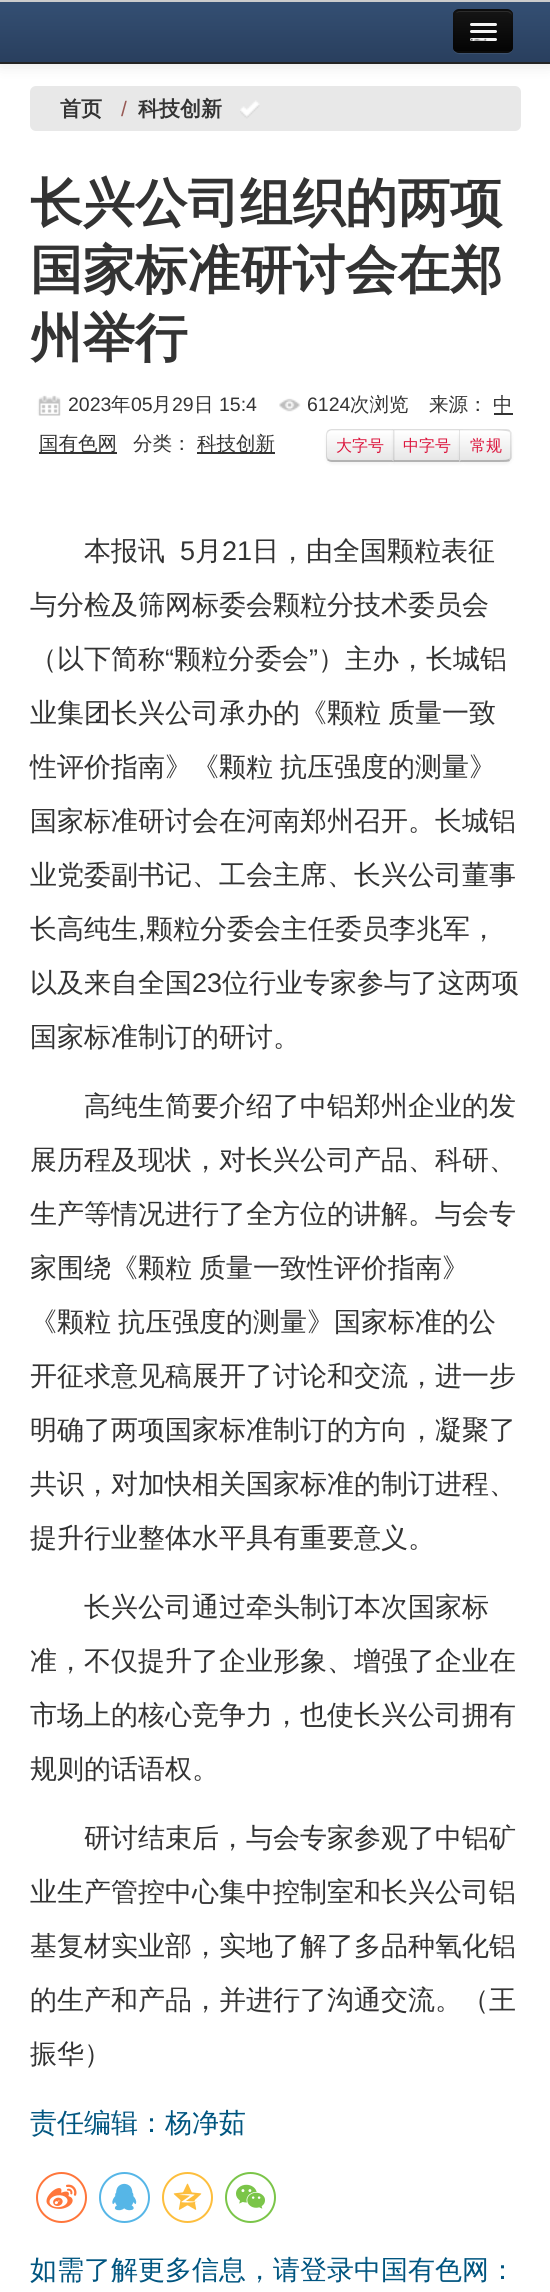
#include <cairo/cairo.h>
#include <math.h>
#include <stddef.h>


static void draw_spaced(cairo_t *cr, double x, double y, const char *s, double letter, double word) {
  cairo_move_to(cr, x, y);
  while (*s) {
    char ch[5] = {0};
    int n = 0;
    do ch[n++] = *s++; while ((*s & 0xC0) == 0x80);
    cairo_show_text(cr, ch);
    cairo_rel_move_to(cr, letter + word * (*ch == ' '), 0);
  }
}

static void rounded_rect(cairo_t *cr, double x, double y, double w, double h, double r) {
  cairo_new_sub_path(cr);
  cairo_arc(cr, x + w - r, y + h - r, r, 0, M_PI / 2);
  cairo_arc(cr, x + r, y + h - r, r, M_PI / 2, M_PI);
  cairo_arc(cr, x + r, y + r, r, M_PI, 1.5 * M_PI);
  cairo_arc(cr, x + w - r, y + r, r, 1.5 * M_PI, 2 * M_PI);
  cairo_close_path(cr);
}

static void draw_shadow(cairo_t *cr, double x, double y, double w, double h, double r, double blur, double alpha) {
  cairo_push_group_with_content(cr, CAIRO_CONTENT_ALPHA);
  cairo_set_operator(cr, CAIRO_OPERATOR_SOURCE);
  for (int i = 15; i >= -15 && fmin(w, h) + blur * i / 3 > 0; i -= 2) {
    double e = blur * i / 6;
    cairo_set_source_rgba(cr, 0, 0, 0, alpha * erfc((i - 1) / 8.5) / 2);
    rounded_rect(cr, x - e, y - e, w + 2 * e, h + 2 * e, fmax(0, fmin(r + e + blur * .6, fmin(w, h) / 2 + e)));
    cairo_fill(cr);
  }
  cairo_pattern_t *soft = cairo_pop_group(cr);
  cairo_mask(cr, soft);
  cairo_pattern_destroy(soft);
}

static void draw_image(cairo_t *cr, const char *path, double x, double y, double w, double h) {
  cairo_surface_t *image = cairo_image_surface_create_from_png(path);
  cairo_save(cr);
  cairo_set_source_surface(cr, image, x, y);
  cairo_rectangle(cr, x, y, w, h);
  cairo_fill(cr);
  cairo_restore(cr);
  cairo_surface_destroy(image);
}

static void draw(cairo_t *cr) {
  cairo_pattern_t *gradient;
  cairo_set_source_rgb(cr, 1, 1, 1);
  cairo_paint(cr);
  cairo_set_source_rgb(cr, 0, 0, 0);
  draw_shadow(cr, 0, 3, 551, 62, 0, 7.5, 0.1);
  gradient = cairo_pattern_create_linear(275, 1.5, 275, 62);
  cairo_pattern_add_color_stop_rgba(gradient, 0, 52 / 255.0, 79 / 255.0, 115 / 255.0, 1);
  cairo_pattern_add_color_stop_rgba(gradient, 1, 41 / 255.0, 63 / 255.0, 94 / 255.0, 1);
  cairo_set_source(cr, gradient);
  cairo_pattern_destroy(gradient);
  cairo_rectangle(cr, 0, 2, 550, 60);
  cairo_fill(cr);
  cairo_set_source_rgb(cr, 37 / 255.0, 37 / 255.0, 37 / 255.0);
  cairo_rectangle(cr, 0, 62, 550, 2);
  cairo_fill(cr);
  cairo_set_source_rgb(cr, 59 / 255.0, 80 / 255.0, 109 / 255.0);
  cairo_new_path(cr);
  cairo_move_to(cr, 453, 46);
  cairo_curve_to(cr, 453, 56, 460, 54, 467, 54);
  cairo_line_to(cr, 499, 54);
  cairo_curve_to(cr, 506, 54, 513, 56, 513, 46);
  cairo_curve_to(cr, 513, 50, 510, 52, 507, 52);
  cairo_line_to(cr, 459, 52);
  cairo_curve_to(cr, 456, 52, 453, 50, 453, 46);
  cairo_close_path(cr);
  cairo_fill(cr);
  cairo_set_source_rgb(cr, 14 / 255.0, 14 / 255.0, 14 / 255.0);
  rounded_rect(cr, 453, 9, 60, 44, 6);
  cairo_fill(cr);
  cairo_save(cr);
  rounded_rect(cr, 453, 9, 60, 44, 6);
  cairo_clip(cr);
  gradient = cairo_pattern_create_linear(483, 10, 483, 51);
  cairo_pattern_add_color_stop_rgba(gradient, 0, 21 / 255.0, 21 / 255.0, 21 / 255.0, 1);
  cairo_pattern_add_color_stop_rgba(gradient, 1, 4 / 255.0, 4 / 255.0, 4 / 255.0, 1);
  cairo_set_source(cr, gradient);
  cairo_pattern_destroy(gradient);
  cairo_rectangle(cr, 453, 11, 60, 40);
  cairo_fill(cr);
  cairo_restore(cr);
  cairo_set_source_rgb(cr, 44 / 255.0, 44 / 255.0, 44 / 255.0);
  cairo_new_path(cr);
  cairo_move_to(cr, 459, 12);
  cairo_line_to(cr, 507, 12);
  cairo_curve_to(cr, 509, 12, 512, 14, 512, 16);
  cairo_curve_to(cr, 512, 13, 510, 11, 507, 11);
  cairo_line_to(cr, 460, 11);
  cairo_curve_to(cr, 458, 11, 457, 12, 456, 13);
  cairo_close_path(cr);
  cairo_fill(cr);
  cairo_new_path(cr);
  cairo_move_to(cr, 510.5, 50);
  cairo_curve_to(cr, 509.5, 51, 508.5, 52, 507, 52);
  cairo_line_to(cr, 459, 52);
  cairo_curve_to(cr, 457.5, 52, 456.5, 51, 455.5, 50);
  cairo_set_source_rgba(cr, 0, 0, 0, 0.25);
  cairo_set_line_width(cr, 1.5);
  cairo_stroke(cr);
  cairo_new_path(cr);
  cairo_move_to(cr, 455.5, 50);
  cairo_curve_to(cr, 454.5, 49, 454, 48, 454, 46.5);
  cairo_line_to(cr, 454, 15);
  cairo_curve_to(cr, 454, 13.5, 454.5, 12.5, 455.5, 11.5);
  cairo_curve_to(cr, 456.5, 10.5, 457.5, 10, 459, 10);
  cairo_line_to(cr, 507, 10);
  cairo_curve_to(cr, 508.5, 10, 509.5, 10.5, 510.5, 11.5);
  cairo_curve_to(cr, 511.5, 12.5, 512, 13.5, 512, 15);
  cairo_line_to(cr, 512, 46.5);
  cairo_curve_to(cr, 512, 48, 511.5, 49, 510.5, 50);
  cairo_set_source_rgba(cr, 0, 0, 0, 0.1);
  cairo_stroke(cr);
  cairo_set_source_rgb(cr, 11 / 255.0, 11 / 255.0, 11 / 255.0);
  cairo_new_path(cr);
  cairo_move_to(cr, 470, 25);
  cairo_curve_to(cr, 469.5, 28, 475, 27, 475.5, 27);
  cairo_line_to(cr, 495.5, 27);
  cairo_curve_to(cr, 497, 27, 497.5, 25, 496.5, 24.5);
  cairo_line_to(cr, 495.5, 25.5);
  cairo_curve_to(cr, 494, 26, 470.5, 25.5, 470, 25);
  cairo_close_path(cr);
  cairo_fill(cr);
  cairo_set_source_rgb(cr, 245 / 255.0, 245 / 255.0, 245 / 255.0);
  rounded_rect(cr, 470, 23, 27, 3, 1.5);
  cairo_fill(cr);
  cairo_set_source_rgb(cr, 8 / 255.0, 8 / 255.0, 8 / 255.0);
  cairo_new_path(cr);
  cairo_move_to(cr, 470, 33);
  cairo_curve_to(cr, 468.5, 36, 475.5, 35, 475.5, 35);
  cairo_line_to(cr, 496, 35);
  cairo_curve_to(cr, 497, 34.5, 497.5, 33, 496.5, 32);
  cairo_line_to(cr, 495, 33);
  cairo_curve_to(cr, 493, 33.5, 471, 33.5, 470, 33);
  cairo_close_path(cr);
  cairo_fill(cr);
  cairo_set_source_rgb(cr, 245 / 255.0, 245 / 255.0, 245 / 255.0);
  rounded_rect(cr, 470, 30, 27, 3, 1.5);
  cairo_fill(cr);
  rounded_rect(cr, 470, 38, 27, 3, 1.5);
  cairo_fill(cr);
  draw_image(cr, "images/1.png", 470, 38, 17, 3);
  cairo_set_source_rgb(cr, 204 / 255.0, 204 / 255.0, 204 / 255.0);
  cairo_rectangle(cr, 0, 0, 550, 2);
  cairo_fill(cr);
  cairo_set_source_rgb(cr, 232 / 255.0, 232 / 255.0, 232 / 255.0);
  rounded_rect(cr, 30, 86, 491, 45, 6);
  cairo_fill(cr);
  draw_image(cr, "images/2.png", 240, 100, 20, 19);
  draw_image(cr, "images/3.png", 37, 395, 24, 21);
  draw_image(cr, "images/4.png", 279, 398, 22, 14);
  cairo_set_source_rgb(cr, 51 / 255.0, 51 / 255.0, 51 / 255.0);
  cairo_rectangle(cr, 494, 413, 19, 2);
  cairo_fill(cr);
  cairo_rectangle(cr, 39, 452, 78, 2);
  cairo_fill(cr);
  cairo_rectangle(cr, 197, 452, 78, 2);
  cairo_fill(cr);
  cairo_set_source_rgb(cr, 0, 0, 0);
  draw_shadow(cr, 326, 431, 69, 33, 6, 1.5, 0.05);
  cairo_set_source_rgb(cr, 245 / 255.0, 245 / 255.0, 245 / 255.0);
  cairo_new_path(cr);
  cairo_move_to(cr, 332, 429);
  cairo_line_to(cr, 395, 429);
  cairo_line_to(cr, 395, 462);
  cairo_line_to(cr, 332, 462);
  cairo_curve_to(cr, 328.5, 462, 326, 459.5, 326, 456);
  cairo_line_to(cr, 326, 435);
  cairo_curve_to(cr, 326, 431.5, 328.5, 429, 332, 429);
  cairo_close_path(cr);
  cairo_fill(cr);
  cairo_save(cr);
  cairo_new_path(cr);
  cairo_move_to(cr, 332, 429);
  cairo_line_to(cr, 395, 429);
  cairo_line_to(cr, 395, 462);
  cairo_line_to(cr, 332, 462);
  cairo_curve_to(cr, 328.5, 462, 326, 459.5, 326, 456);
  cairo_line_to(cr, 326, 435);
  cairo_curve_to(cr, 326, 431.5, 328.5, 429, 332, 429);
  cairo_close_path(cr);
  cairo_clip(cr);
  gradient = cairo_pattern_create_linear(360, 431, 360, 461);
  cairo_pattern_add_color_stop_rgba(gradient, 0, 1, 1, 1, 1);
  cairo_pattern_add_color_stop_rgba(gradient, 1, 230 / 255.0, 230 / 255.0, 230 / 255.0, 1);
  cairo_set_source(cr, gradient);
  cairo_pattern_destroy(gradient);
  cairo_rectangle(cr, 326, 431, 67, 30);
  cairo_fill(cr);
  cairo_restore(cr);
  cairo_set_source_rgba(cr, 0, 0, 0, 0.1);
  cairo_new_path(cr);
  cairo_move_to(cr, 332, 429);
  cairo_curve_to(cr, 330, 429, 328, 430, 327, 431);
  cairo_line_to(cr, 328, 432);
  cairo_line_to(cr, 331, 430);
  cairo_line_to(cr, 393, 430);
  cairo_line_to(cr, 394, 429);
  cairo_close_path(cr);
  cairo_fill(cr);
  cairo_set_source_rgb(cr, 179 / 255.0, 179 / 255.0, 179 / 255.0);
  cairo_new_path(cr);
  cairo_move_to(cr, 332, 462);
  cairo_line_to(cr, 394, 462);
  cairo_line_to(cr, 392, 460);
  cairo_line_to(cr, 332, 460);
  cairo_curve_to(cr, 331, 460, 329, 460, 329, 459);
  cairo_line_to(cr, 327, 460);
  cairo_curve_to(cr, 328, 461, 330, 462, 332, 462);
  cairo_close_path(cr);
  cairo_fill(cr);
  cairo_set_source_rgba(cr, 0, 0, 0, 0.1);
  cairo_new_path(cr);
  cairo_move_to(cr, 327.5, 431);
  cairo_curve_to(cr, 326.5, 432, 326, 433.5, 326, 435);
  cairo_line_to(cr, 326, 456);
  cairo_curve_to(cr, 326, 457.5, 326.5, 459, 327.5, 460);
  cairo_line_to(cr, 328.5, 459);
  cairo_curve_to(cr, 327.5, 458, 327, 457, 327, 456);
  cairo_line_to(cr, 327, 435);
  cairo_curve_to(cr, 327, 434, 327.5, 433, 328.5, 432);
  cairo_close_path(cr);
  cairo_fill(cr);
  cairo_set_source_rgb(cr, 0, 0, 0);
  draw_shadow(cr, 393, 431, 68, 33, 0, 1.5, 0.05);
  cairo_set_source_rgb(cr, 245 / 255.0, 245 / 255.0, 245 / 255.0);
  cairo_rectangle(cr, 393, 429, 66, 33);
  cairo_fill(cr);
  gradient = cairo_pattern_create_linear(427, 431, 427, 461);
  cairo_pattern_add_color_stop_rgba(gradient, 0, 1, 1, 1, 1);
  cairo_pattern_add_color_stop_rgba(gradient, 1, 230 / 255.0, 230 / 255.0, 230 / 255.0, 1);
  cairo_set_source(cr, gradient);
  cairo_pattern_destroy(gradient);
  cairo_rectangle(cr, 393, 431, 66, 30);
  cairo_fill(cr);
  cairo_set_source_rgb(cr, 221 / 255.0, 221 / 255.0, 221 / 255.0);
  cairo_new_path(cr);
  cairo_move_to(cr, 393, 429);
  cairo_line_to(cr, 460, 429);
  cairo_line_to(cr, 459, 430);
  cairo_line_to(cr, 394, 430);
  cairo_close_path(cr);
  cairo_fill(cr);
  cairo_set_source_rgb(cr, 179 / 255.0, 179 / 255.0, 179 / 255.0);
  cairo_new_path(cr);
  cairo_move_to(cr, 460, 462);
  cairo_line_to(cr, 393, 462);
  cairo_line_to(cr, 394, 460);
  cairo_line_to(cr, 459, 460);
  cairo_close_path(cr);
  cairo_fill(cr);
  cairo_set_source_rgba(cr, 0, 0, 0, 0.1);
  cairo_new_path(cr);
  cairo_move_to(cr, 393, 462);
  cairo_line_to(cr, 393, 429);
  cairo_line_to(cr, 394.5, 430.5);
  cairo_line_to(cr, 394.5, 460.5);
  cairo_close_path(cr);
  cairo_fill(cr);
  cairo_set_source_rgb(cr, 0, 0, 0);
  draw_shadow(cr, 459, 431, 53, 33, 6, 1.5, 0.05);
  cairo_set_source_rgb(cr, 245 / 255.0, 245 / 255.0, 245 / 255.0);
  cairo_new_path(cr);
  cairo_move_to(cr, 459, 429);
  cairo_line_to(cr, 506, 429);
  cairo_curve_to(cr, 509.5, 429, 512, 431.5, 512, 435);
  cairo_line_to(cr, 512, 456);
  cairo_curve_to(cr, 512, 459.5, 509.5, 462, 506, 462);
  cairo_line_to(cr, 459, 462);
  cairo_close_path(cr);
  cairo_fill(cr);
  cairo_save(cr);
  cairo_new_path(cr);
  cairo_move_to(cr, 459, 429);
  cairo_line_to(cr, 506, 429);
  cairo_curve_to(cr, 509.5, 429, 512, 431.5, 512, 435);
  cairo_line_to(cr, 512, 456);
  cairo_curve_to(cr, 512, 459.5, 509.5, 462, 506, 462);
  cairo_line_to(cr, 459, 462);
  cairo_close_path(cr);
  cairo_clip(cr);
  gradient = cairo_pattern_create_linear(485, 431, 485, 461);
  cairo_pattern_add_color_stop_rgba(gradient, 0, 1, 1, 1, 1);
  cairo_pattern_add_color_stop_rgba(gradient, 1, 230 / 255.0, 230 / 255.0, 230 / 255.0, 1);
  cairo_set_source(cr, gradient);
  cairo_pattern_destroy(gradient);
  cairo_rectangle(cr, 459, 431, 53, 30);
  cairo_fill(cr);
  cairo_restore(cr);
  cairo_set_source_rgba(cr, 0, 0, 0, 0.1);
  cairo_new_path(cr);
  cairo_move_to(cr, 459, 429);
  cairo_line_to(cr, 460, 430);
  cairo_curve_to(cr, 466, 430, 506, 429, 509, 432);
  cairo_line_to(cr, 510, 430);
  cairo_curve_to(cr, 508, 429, 505, 429, 498, 429);
  cairo_close_path(cr);
  cairo_fill(cr);
  cairo_new_path(cr);
  cairo_move_to(cr, 511.5, 458.5);
  cairo_line_to(cr, 510, 460.5);
  cairo_line_to(cr, 508.5, 459);
  cairo_curve_to(cr, 509.5, 458.5, 510, 458, 510, 457);
  cairo_line_to(cr, 510, 434.5);
  cairo_curve_to(cr, 510, 433.5, 510, 432.5, 509, 431.5);
  cairo_line_to(cr, 510, 430.5);
  cairo_curve_to(cr, 510.5, 431, 511, 431.5, 511.5, 432.5);
  cairo_close_path(cr);
  cairo_fill(cr);
  cairo_set_source_rgb(cr, 179 / 255.0, 179 / 255.0, 179 / 255.0);
  cairo_new_path(cr);
  cairo_move_to(cr, 498, 462);
  cairo_curve_to(cr, 505, 462, 508, 462, 510, 461);
  cairo_line_to(cr, 509, 459);
  cairo_curve_to(cr, 507, 460, 504, 460, 498, 460);
  cairo_line_to(cr, 461, 460);
  cairo_line_to(cr, 459, 462);
  cairo_close_path(cr);
  cairo_fill(cr);
  cairo_set_source_rgba(cr, 0, 0, 0, 0.1);
  cairo_new_path(cr);
  cairo_move_to(cr, 459, 429);
  cairo_line_to(cr, 459, 462);
  cairo_line_to(cr, 461, 460);
  cairo_line_to(cr, 460, 460);
  cairo_line_to(cr, 460, 430);
  cairo_close_path(cr);
  cairo_fill(cr);
  cairo_arc(cr, 61.5, 2197.5, 24.5, 0, 2 * M_PI);
  cairo_set_source_rgb(cr, 1, 118 / 255.0, 59 / 255.0);
  cairo_set_line_width(cr, 2);
  cairo_stroke(cr);
  draw_image(cr, "images/5.png", 46, 2184, 31, 25);
  cairo_arc(cr, 124.5, 2197.5, 24.5, 0, 2 * M_PI);
  cairo_set_source_rgb(cr, 86 / 255.0, 182 / 255.0, 231 / 255.0);
  cairo_stroke(cr);
  draw_image(cr, "images/6.png", 112, 2183, 25, 28);
  cairo_arc(cr, 187.5, 2197.5, 24.5, 0, 2 * M_PI);
  cairo_set_source_rgb(cr, 253 / 255.0, 190 / 255.0, 61 / 255.0);
  cairo_stroke(cr);
  draw_image(cr, "images/7.png", 173, 2183, 29, 27);
  cairo_arc(cr, 250.5, 2197.5, 24.5, 0, 2 * M_PI);
  cairo_set_source_rgb(cr, 123 / 255.0, 197 / 255.0, 73 / 255.0);
  cairo_stroke(cr);
  draw_image(cr, "images/8.png", 236, 2184, 29, 25);
  cairo_select_font_face(cr, "WenQuanYi Zen Hei", CAIRO_FONT_SLANT_NORMAL, CAIRO_FONT_WEIGHT_BOLD);
  cairo_set_font_size(cr, 21);
  cairo_set_source_rgb(cr, 51 / 255.0, 51 / 255.0, 51 / 255.0);
  cairo_move_to(cr, 60, 116);
  cairo_show_text(cr, "首页");
  cairo_select_font_face(cr, "Liberation Sans", CAIRO_FONT_SLANT_NORMAL, CAIRO_FONT_WEIGHT_NORMAL);
  cairo_set_source_rgb(cr, 152 / 255.0, 90 / 255.0, 85 / 255.0);
  cairo_move_to(cr, 121, 116);
  cairo_show_text(cr, "/");
  cairo_select_font_face(cr, "WenQuanYi Zen Hei", CAIRO_FONT_SLANT_NORMAL, CAIRO_FONT_WEIGHT_BOLD);
  cairo_set_source_rgb(cr, 51 / 255.0, 51 / 255.0, 51 / 255.0);
  cairo_move_to(cr, 138, 116);
  cairo_show_text(cr, "科技创新");
  cairo_set_font_size(cr, 52.5);
  cairo_move_to(cr, 30, 221);
  cairo_show_text(cr, "长兴公司组织的两项");
  cairo_move_to(cr, 30, 288);
  cairo_show_text(cr, "国家标准研讨会在郑");
  cairo_move_to(cr, 30, 356);
  cairo_show_text(cr, "州举行");
  cairo_select_font_face(cr, "Liberation Sans", CAIRO_FONT_SLANT_NORMAL, CAIRO_FONT_WEIGHT_NORMAL);
  cairo_set_font_size(cr, 19.5);
  cairo_move_to(cr, 68, 411);
  cairo_show_text(cr, "2023");
  cairo_select_font_face(cr, "WenQuanYi Zen Hei Medium", CAIRO_FONT_SLANT_NORMAL, CAIRO_FONT_WEIGHT_NORMAL);
  cairo_move_to(cr, 111, 411);
  cairo_show_text(cr, "年");
  cairo_select_font_face(cr, "Liberation Sans", CAIRO_FONT_SLANT_NORMAL, CAIRO_FONT_WEIGHT_NORMAL);
  cairo_move_to(cr, 131, 411);
  cairo_show_text(cr, "05");
  cairo_select_font_face(cr, "WenQuanYi Zen Hei Medium", CAIRO_FONT_SLANT_NORMAL, CAIRO_FONT_WEIGHT_NORMAL);
  cairo_move_to(cr, 152, 411);
  cairo_show_text(cr, "月");
  cairo_select_font_face(cr, "Liberation Sans", CAIRO_FONT_SLANT_NORMAL, CAIRO_FONT_WEIGHT_NORMAL);
  cairo_move_to(cr, 172, 411);
  cairo_show_text(cr, "29");
  cairo_select_font_face(cr, "WenQuanYi Zen Hei Medium", CAIRO_FONT_SLANT_NORMAL, CAIRO_FONT_WEIGHT_NORMAL);
  cairo_move_to(cr, 194, 411);
  cairo_show_text(cr, "日");
  cairo_select_font_face(cr, "Liberation Sans", CAIRO_FONT_SLANT_NORMAL, CAIRO_FONT_WEIGHT_NORMAL);
  cairo_move_to(cr, 219, 411);
  cairo_show_text(cr, "15:4");
  cairo_move_to(cr, 307, 411);
  cairo_show_text(cr, "6124");
  cairo_select_font_face(cr, "WenQuanYi Zen Hei Medium", CAIRO_FONT_SLANT_NORMAL, CAIRO_FONT_WEIGHT_NORMAL);
  cairo_move_to(cr, 350, 411);
  cairo_show_text(cr, "次浏览");
  cairo_move_to(cr, 429, 411);
  cairo_show_text(cr, "来源：");
  cairo_move_to(cr, 493, 411);
  cairo_show_text(cr, "中");
  cairo_move_to(cr, 39, 450);
  cairo_show_text(cr, "国有色网");
  cairo_move_to(cr, 133, 450);
  cairo_show_text(cr, "分类：");
  cairo_move_to(cr, 197, 450);
  cairo_show_text(cr, "科技创新");
  cairo_set_font_size(cr, 16);
  cairo_set_source_rgb(cr, 220 / 255.0, 20 / 255.0, 60 / 255.0);
  cairo_move_to(cr, 336, 451);
  cairo_show_text(cr, "大字号");
  cairo_move_to(cr, 403, 451);
  cairo_show_text(cr, "中字号");
  cairo_move_to(cr, 470, 451);
  cairo_show_text(cr, "常规");
  cairo_set_font_size(cr, 27);
  cairo_set_source_rgb(cr, 51 / 255.0, 51 / 255.0, 51 / 255.0);
  cairo_move_to(cr, 84, 560);
  cairo_show_text(cr, "本报讯");
  cairo_select_font_face(cr, "Liberation Sans", CAIRO_FONT_SLANT_NORMAL, CAIRO_FONT_WEIGHT_NORMAL);
  cairo_move_to(cr, 180, 560);
  cairo_show_text(cr, "5");
  cairo_select_font_face(cr, "WenQuanYi Zen Hei Medium", CAIRO_FONT_SLANT_NORMAL, CAIRO_FONT_WEIGHT_NORMAL);
  cairo_move_to(cr, 195, 560);
  cairo_show_text(cr, "月");
  cairo_select_font_face(cr, "Liberation Sans", CAIRO_FONT_SLANT_NORMAL, CAIRO_FONT_WEIGHT_NORMAL);
  cairo_move_to(cr, 222, 560);
  cairo_show_text(cr, "21");
  cairo_select_font_face(cr, "WenQuanYi Zen Hei Medium", CAIRO_FONT_SLANT_NORMAL, CAIRO_FONT_WEIGHT_NORMAL);
  cairo_move_to(cr, 252, 560);
  cairo_show_text(cr, "日，由全国颗粒表征");
  cairo_move_to(cr, 30, 614);
  cairo_show_text(cr, "与分检及筛网标委会颗粒分技术委员会");
  cairo_move_to(cr, 30, 668);
  cairo_show_text(cr, "（以下简称");
  cairo_select_font_face(cr, "Liberation Sans", CAIRO_FONT_SLANT_NORMAL, CAIRO_FONT_WEIGHT_NORMAL);
  cairo_move_to(cr, 165, 668);
  cairo_show_text(cr, "“");
  cairo_select_font_face(cr, "WenQuanYi Zen Hei Medium", CAIRO_FONT_SLANT_NORMAL, CAIRO_FONT_WEIGHT_NORMAL);
  cairo_move_to(cr, 174, 668);
  cairo_show_text(cr, "颗粒分委会");
  cairo_select_font_face(cr, "Liberation Sans", CAIRO_FONT_SLANT_NORMAL, CAIRO_FONT_WEIGHT_NORMAL);
  cairo_move_to(cr, 309, 668);
  cairo_show_text(cr, "”");
  cairo_select_font_face(cr, "WenQuanYi Zen Hei Medium", CAIRO_FONT_SLANT_NORMAL, CAIRO_FONT_WEIGHT_NORMAL);
  cairo_move_to(cr, 318, 668);
  cairo_show_text(cr, "）主办，长城铝");
  draw_spaced(cr, 30, 722, "业集团长兴公司承办的《颗粒 质量一致", 0, -1);
  draw_spaced(cr, 30, 776, "性评价指南》《颗粒 抗压强度的测量》", 0, -1);
  cairo_move_to(cr, 30, 830);
  cairo_show_text(cr, "国家标准研讨会在河南郑州召开。长城铝");
  cairo_move_to(cr, 30, 884);
  cairo_show_text(cr, "业党委副书记、工会主席、长兴公司董事");
  cairo_move_to(cr, 30, 938);
  cairo_show_text(cr, "长高纯生");
  cairo_select_font_face(cr, "Liberation Sans", CAIRO_FONT_SLANT_NORMAL, CAIRO_FONT_WEIGHT_NORMAL);
  cairo_move_to(cr, 138, 938);
  cairo_show_text(cr, ",");
  cairo_select_font_face(cr, "WenQuanYi Zen Hei Medium", CAIRO_FONT_SLANT_NORMAL, CAIRO_FONT_WEIGHT_NORMAL);
  cairo_move_to(cr, 146, 938);
  cairo_show_text(cr, "颗粒分委会主任委员李兆军，");
  cairo_move_to(cr, 30, 992);
  cairo_show_text(cr, "以及来自全国");
  cairo_select_font_face(cr, "Liberation Sans", CAIRO_FONT_SLANT_NORMAL, CAIRO_FONT_WEIGHT_NORMAL);
  cairo_move_to(cr, 192, 992);
  cairo_show_text(cr, "23");
  cairo_select_font_face(cr, "WenQuanYi Zen Hei Medium", CAIRO_FONT_SLANT_NORMAL, CAIRO_FONT_WEIGHT_NORMAL);
  cairo_move_to(cr, 222, 992);
  cairo_show_text(cr, "位行业专家参与了这两项");
  cairo_move_to(cr, 30, 1046);
  cairo_show_text(cr, "国家标准制订的研讨。");
  cairo_move_to(cr, 84, 1115);
  cairo_show_text(cr, "高纯生简要介绍了中铝郑州企业的发");
  cairo_move_to(cr, 30, 1169);
  cairo_show_text(cr, "展历程及现状，对长兴公司产品、科研、");
  cairo_move_to(cr, 30, 1223);
  cairo_show_text(cr, "生产等情况进行了全方位的讲解。与会专");
  draw_spaced(cr, 30, 1277, "家围绕《颗粒 质量一致性评价指南》", 0, -1);
  draw_spaced(cr, 30, 1331, "《颗粒 抗压强度的测量》国家标准的公", 0, -1);
  cairo_move_to(cr, 30, 1385);
  cairo_show_text(cr, "开征求意见稿展开了讨论和交流，进一步");
  cairo_move_to(cr, 30, 1439);
  cairo_show_text(cr, "明确了两项国家标准制订的方向，凝聚了");
  cairo_move_to(cr, 30, 1493);
  cairo_show_text(cr, "共识，对加快相关国家标准的制订进程、");
  cairo_move_to(cr, 30, 1547);
  cairo_show_text(cr, "提升行业整体水平具有重要意义。");
  cairo_move_to(cr, 84, 1616);
  cairo_show_text(cr, "长兴公司通过牵头制订本次国家标");
  cairo_move_to(cr, 30, 1670);
  cairo_show_text(cr, "准，不仅提升了企业形象、增强了企业在");
  cairo_move_to(cr, 30, 1724);
  cairo_show_text(cr, "市场上的核心竞争力，也使长兴公司拥有");
  cairo_move_to(cr, 30, 1778);
  cairo_show_text(cr, "规则的话语权。");
  cairo_move_to(cr, 84, 1847);
  cairo_show_text(cr, "研讨结束后，与会专家参观了中铝矿");
  cairo_move_to(cr, 30, 1901);
  cairo_show_text(cr, "业生产管控中心集中控制室和长兴公司铝");
  cairo_move_to(cr, 30, 1955);
  cairo_show_text(cr, "基复材实业部，实地了解了多品种氧化铝");
  cairo_move_to(cr, 30, 2009);
  cairo_show_text(cr, "的生产和产品，并进行了沟通交流。（王");
  cairo_move_to(cr, 30, 2063);
  cairo_show_text(cr, "振华）");
  cairo_set_source_rgb(cr, 0, 85 / 255.0, 128 / 255.0);
  cairo_move_to(cr, 30, 2132);
  cairo_show_text(cr, "责任编辑：杨净茹");
  cairo_move_to(cr, 30, 2279);
  cairo_show_text(cr, "如需了解更多信息，请登录中国有色网：");
}

int main(void) {
  cairo_surface_t *surface = cairo_image_surface_create(CAIRO_FORMAT_RGB24, 550, 2292);
  cairo_t *cr = cairo_create(surface);
  cairo_font_options_t *options = cairo_font_options_create();
  cairo_font_options_set_hint_metrics(options, CAIRO_HINT_METRICS_OFF);
  cairo_font_options_set_hint_style(options, CAIRO_HINT_STYLE_NONE);
  cairo_set_font_options(cr, options);
  cairo_set_miter_limit(cr, 4);
  draw(cr);
  cairo_surface_write_to_png(surface, "out.png");
  cairo_font_options_destroy(options);
  cairo_destroy(cr);
  cairo_surface_destroy(surface);
  return 0;
}
